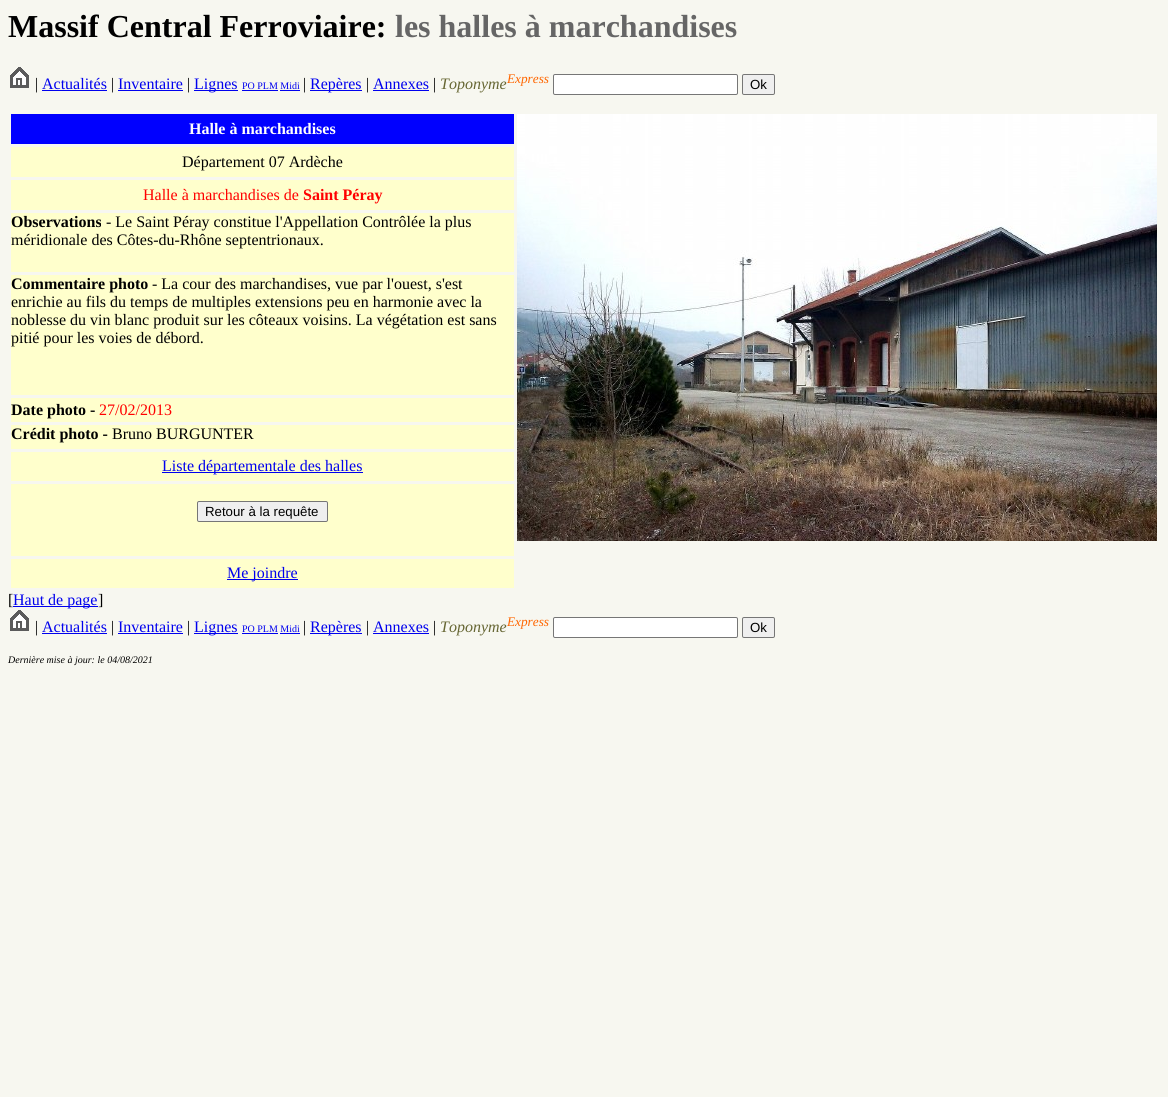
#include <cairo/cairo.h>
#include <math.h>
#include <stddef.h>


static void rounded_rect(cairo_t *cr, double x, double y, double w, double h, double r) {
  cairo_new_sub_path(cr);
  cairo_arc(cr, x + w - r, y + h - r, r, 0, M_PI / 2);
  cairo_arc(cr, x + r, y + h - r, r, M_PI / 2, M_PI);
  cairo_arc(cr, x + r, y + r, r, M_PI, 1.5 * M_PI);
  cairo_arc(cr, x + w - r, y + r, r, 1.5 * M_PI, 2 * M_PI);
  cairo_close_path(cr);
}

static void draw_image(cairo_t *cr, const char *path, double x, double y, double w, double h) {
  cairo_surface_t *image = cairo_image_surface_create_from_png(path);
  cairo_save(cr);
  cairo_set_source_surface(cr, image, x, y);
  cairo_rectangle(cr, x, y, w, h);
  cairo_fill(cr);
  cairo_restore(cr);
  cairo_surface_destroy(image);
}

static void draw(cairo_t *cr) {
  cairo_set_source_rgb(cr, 247 / 255.0, 247 / 255.0, 240 / 255.0);
  cairo_paint(cr);
  draw_image(cr, "images/1.png", 10, 67, 19, 21);
  cairo_set_source_rgb(cr, 0, 0, 238 / 255.0);
  cairo_rectangle(cr, 42, 90, 65, 1);
  cairo_fill(cr);
  cairo_rectangle(cr, 118, 90, 65, 1);
  cairo_fill(cr);
  cairo_rectangle(cr, 194, 90, 44, 1);
  cairo_fill(cr);
  cairo_rectangle(cr, 242, 90, 36, 1);
  cairo_fill(cr);
  cairo_rectangle(cr, 280, 90, 20, 1);
  cairo_fill(cr);
  cairo_rectangle(cr, 310, 90, 52, 1);
  cairo_fill(cr);
  cairo_rectangle(cr, 373, 90, 56, 1);
  cairo_fill(cr);
  cairo_set_source_rgb(cr, 1, 1, 1);
  rounded_rect(cr, 553.5, 74.5, 184, 20, 1.5);
  cairo_fill_preserve(cr);
  cairo_set_source_rgb(cr, 118 / 255.0, 118 / 255.0, 118 / 255.0);
  cairo_set_line_width(cr, 1);
  cairo_stroke(cr);
  cairo_set_source_rgb(cr, 239 / 255.0, 239 / 255.0, 239 / 255.0);
  rounded_rect(cr, 742.5, 74.5, 32, 20, 1.5);
  cairo_fill_preserve(cr);
  cairo_set_source_rgb(cr, 118 / 255.0, 118 / 255.0, 118 / 255.0);
  cairo_stroke(cr);
  cairo_set_source_rgb(cr, 0, 0, 1);
  cairo_rectangle(cr, 11, 114, 503, 30);
  cairo_fill(cr);
  draw_image(cr, "images/2.png", 517, 114, 640, 427);
  cairo_set_source_rgb(cr, 1, 1, 204 / 255.0);
  cairo_rectangle(cr, 11, 147, 503, 30);
  cairo_fill(cr);
  cairo_rectangle(cr, 11, 180, 503, 30);
  cairo_fill(cr);
  cairo_rectangle(cr, 11, 213, 503, 59);
  cairo_fill(cr);
  cairo_rectangle(cr, 11, 275, 503, 120);
  cairo_fill(cr);
  cairo_rectangle(cr, 11, 398, 503, 24);
  cairo_fill(cr);
  cairo_rectangle(cr, 11, 425, 503, 24);
  cairo_fill(cr);
  cairo_rectangle(cr, 11, 452, 503, 29);
  cairo_fill(cr);
  cairo_set_source_rgb(cr, 0, 0, 238 / 255.0);
  cairo_rectangle(cr, 162, 472, 201, 1);
  cairo_fill(cr);
  cairo_set_source_rgb(cr, 1, 1, 204 / 255.0);
  cairo_rectangle(cr, 11, 484, 503, 72);
  cairo_fill(cr);
  cairo_set_source_rgb(cr, 239 / 255.0, 239 / 255.0, 239 / 255.0);
  rounded_rect(cr, 197.5, 501.5, 130, 20, 1.5);
  cairo_fill_preserve(cr);
  cairo_set_source_rgb(cr, 118 / 255.0, 118 / 255.0, 118 / 255.0);
  cairo_stroke(cr);
  cairo_set_source_rgb(cr, 1, 1, 204 / 255.0);
  cairo_rectangle(cr, 11, 559, 503, 29);
  cairo_fill(cr);
  cairo_set_source_rgb(cr, 0, 0, 238 / 255.0);
  cairo_rectangle(cr, 227, 579, 71, 1);
  cairo_fill(cr);
  cairo_rectangle(cr, 13, 606, 85, 1);
  cairo_fill(cr);
  draw_image(cr, "images/1.png", 10, 610, 19, 21);
  cairo_rectangle(cr, 42, 633, 65, 1);
  cairo_fill(cr);
  cairo_rectangle(cr, 118, 633, 65, 1);
  cairo_fill(cr);
  cairo_rectangle(cr, 194, 633, 44, 1);
  cairo_fill(cr);
  cairo_rectangle(cr, 242, 633, 36, 1);
  cairo_fill(cr);
  cairo_rectangle(cr, 280, 633, 20, 1);
  cairo_fill(cr);
  cairo_rectangle(cr, 310, 633, 52, 1);
  cairo_fill(cr);
  cairo_rectangle(cr, 373, 633, 56, 1);
  cairo_fill(cr);
  cairo_set_source_rgb(cr, 1, 1, 1);
  rounded_rect(cr, 553.5, 617.5, 184, 20, 1.5);
  cairo_fill_preserve(cr);
  cairo_set_source_rgb(cr, 118 / 255.0, 118 / 255.0, 118 / 255.0);
  cairo_stroke(cr);
  cairo_set_source_rgb(cr, 239 / 255.0, 239 / 255.0, 239 / 255.0);
  rounded_rect(cr, 742.5, 617.5, 32, 20, 1.5);
  cairo_fill_preserve(cr);
  cairo_set_source_rgb(cr, 118 / 255.0, 118 / 255.0, 118 / 255.0);
  cairo_stroke(cr);
  cairo_select_font_face(cr, "Liberation Serif", CAIRO_FONT_SLANT_NORMAL, CAIRO_FONT_WEIGHT_BOLD);
  cairo_set_font_size(cr, 32);
  cairo_set_source_rgb(cr, 0, 0, 0);
  cairo_move_to(cr, 8, 37);
  cairo_show_text(cr, "Massif Central Ferroviaire:");
  cairo_set_source_rgb(cr, 102 / 255.0, 102 / 255.0, 102 / 255.0);
  cairo_move_to(cr, 395, 37);
  cairo_show_text(cr, "les halles à marchandises");
  cairo_select_font_face(cr, "Liberation Serif", CAIRO_FONT_SLANT_NORMAL, CAIRO_FONT_WEIGHT_NORMAL);
  cairo_set_font_size(cr, 16);
  cairo_set_source_rgb(cr, 0, 0, 0);
  cairo_move_to(cr, 35, 89);
  cairo_show_text(cr, "|");
  cairo_set_source_rgb(cr, 0, 0, 238 / 255.0);
  cairo_move_to(cr, 42, 89);
  cairo_show_text(cr, "Actualités");
  cairo_set_source_rgb(cr, 0, 0, 0);
  cairo_move_to(cr, 111, 89);
  cairo_show_text(cr, "|");
  cairo_set_source_rgb(cr, 0, 0, 238 / 255.0);
  cairo_move_to(cr, 118, 89);
  cairo_show_text(cr, "Inventaire");
  cairo_set_source_rgb(cr, 0, 0, 0);
  cairo_move_to(cr, 187, 89);
  cairo_show_text(cr, "|");
  cairo_set_source_rgb(cr, 0, 0, 238 / 255.0);
  cairo_move_to(cr, 194, 89);
  cairo_show_text(cr, "Lignes");
  cairo_set_font_size(cr, 10);
  cairo_move_to(cr, 242, 89);
  cairo_show_text(cr, "PO PLM Midi");
  cairo_set_font_size(cr, 16);
  cairo_set_source_rgb(cr, 0, 0, 0);
  cairo_move_to(cr, 303, 89);
  cairo_show_text(cr, "|");
  cairo_set_source_rgb(cr, 0, 0, 238 / 255.0);
  cairo_move_to(cr, 310, 89);
  cairo_show_text(cr, "Repères");
  cairo_set_source_rgb(cr, 0, 0, 0);
  cairo_move_to(cr, 366, 89);
  cairo_show_text(cr, "|");
  cairo_set_source_rgb(cr, 0, 0, 238 / 255.0);
  cairo_move_to(cr, 373, 89);
  cairo_show_text(cr, "Annexes");
  cairo_set_source_rgb(cr, 0, 0, 0);
  cairo_move_to(cr, 433, 89);
  cairo_show_text(cr, "|");
  cairo_select_font_face(cr, "Liberation Serif", CAIRO_FONT_SLANT_ITALIC, CAIRO_FONT_WEIGHT_NORMAL);
  cairo_set_source_rgb(cr, 102 / 255.0, 102 / 255.0, 51 / 255.0);
  cairo_move_to(cr, 440, 89);
  cairo_show_text(cr, "Toponyme");
  cairo_set_font_size(cr, 13.25);
  cairo_set_source_rgb(cr, 1, 102 / 255.0, 0);
  cairo_move_to(cr, 507, 83);
  cairo_show_text(cr, "Express");
  cairo_select_font_face(cr, "Liberation Sans", CAIRO_FONT_SLANT_NORMAL, CAIRO_FONT_WEIGHT_NORMAL);
  cairo_set_source_rgb(cr, 0, 0, 0);
  cairo_move_to(cr, 750, 89);
  cairo_show_text(cr, "Ok");
  cairo_select_font_face(cr, "Liberation Serif", CAIRO_FONT_SLANT_NORMAL, CAIRO_FONT_WEIGHT_BOLD);
  cairo_set_font_size(cr, 16);
  cairo_set_source_rgb(cr, 1, 1, 1);
  cairo_move_to(cr, 189, 134);
  cairo_show_text(cr, "Halle à marchandises");
  cairo_select_font_face(cr, "Liberation Serif", CAIRO_FONT_SLANT_NORMAL, CAIRO_FONT_WEIGHT_NORMAL);
  cairo_set_source_rgb(cr, 0, 0, 0);
  cairo_move_to(cr, 182, 167);
  cairo_show_text(cr, "Département 07 Ardèche");
  cairo_set_source_rgb(cr, 1, 0, 0);
  cairo_move_to(cr, 143, 200);
  cairo_show_text(cr, "Halle à marchandises de");
  cairo_select_font_face(cr, "Liberation Serif", CAIRO_FONT_SLANT_NORMAL, CAIRO_FONT_WEIGHT_BOLD);
  cairo_move_to(cr, 303, 200);
  cairo_show_text(cr, "Saint Péray");
  cairo_set_source_rgb(cr, 0, 0, 0);
  cairo_move_to(cr, 11, 227);
  cairo_show_text(cr, "Observations");
  cairo_select_font_face(cr, "Liberation Serif", CAIRO_FONT_SLANT_NORMAL, CAIRO_FONT_WEIGHT_NORMAL);
  cairo_move_to(cr, 106, 227);
  cairo_show_text(cr, "- Le Saint Péray constitue l'Appellation Contrôlée la plus");
  cairo_move_to(cr, 11, 245);
  cairo_show_text(cr, "méridionale des Côtes-du-Rhône septentrionaux.");
  cairo_select_font_face(cr, "Liberation Serif", CAIRO_FONT_SLANT_NORMAL, CAIRO_FONT_WEIGHT_BOLD);
  cairo_move_to(cr, 11, 289);
  cairo_show_text(cr, "Commentaire photo");
  cairo_select_font_face(cr, "Liberation Serif", CAIRO_FONT_SLANT_NORMAL, CAIRO_FONT_WEIGHT_NORMAL);
  cairo_move_to(cr, 152, 289);
  cairo_show_text(cr, "- La cour des marchandises, vue par l'ouest, s'est");
  cairo_move_to(cr, 11, 307);
  cairo_show_text(cr, "enrichie au fils du temps de multiples extensions peu en harmonie avec la");
  cairo_move_to(cr, 11, 325);
  cairo_show_text(cr, "noblesse du vin blanc produit sur les côteaux voisins. La végétation est sans");
  cairo_move_to(cr, 11, 343);
  cairo_show_text(cr, "pitié pour les voies de débord.");
  cairo_select_font_face(cr, "Liberation Serif", CAIRO_FONT_SLANT_NORMAL, CAIRO_FONT_WEIGHT_BOLD);
  cairo_move_to(cr, 11, 415);
  cairo_show_text(cr, "Date photo -");
  cairo_select_font_face(cr, "Liberation Serif", CAIRO_FONT_SLANT_NORMAL, CAIRO_FONT_WEIGHT_NORMAL);
  cairo_set_source_rgb(cr, 1, 0, 0);
  cairo_move_to(cr, 99, 415);
  cairo_show_text(cr, "27/02/2013");
  cairo_select_font_face(cr, "Liberation Serif", CAIRO_FONT_SLANT_NORMAL, CAIRO_FONT_WEIGHT_BOLD);
  cairo_set_source_rgb(cr, 0, 0, 0);
  cairo_move_to(cr, 11, 439);
  cairo_show_text(cr, "Crédit photo -");
  cairo_select_font_face(cr, "Liberation Serif", CAIRO_FONT_SLANT_NORMAL, CAIRO_FONT_WEIGHT_NORMAL);
  cairo_move_to(cr, 112, 439);
  cairo_show_text(cr, "Bruno BURGUNTER");
  cairo_set_source_rgb(cr, 0, 0, 238 / 255.0);
  cairo_move_to(cr, 162, 471);
  cairo_show_text(cr, "Liste départementale des halles");
  cairo_select_font_face(cr, "Liberation Sans", CAIRO_FONT_SLANT_NORMAL, CAIRO_FONT_WEIGHT_NORMAL);
  cairo_set_font_size(cr, 13.25);
  cairo_set_source_rgb(cr, 0, 0, 0);
  cairo_move_to(cr, 205, 516);
  cairo_show_text(cr, "Retour à la requête");
  cairo_select_font_face(cr, "Liberation Serif", CAIRO_FONT_SLANT_NORMAL, CAIRO_FONT_WEIGHT_NORMAL);
  cairo_set_font_size(cr, 16);
  cairo_set_source_rgb(cr, 0, 0, 238 / 255.0);
  cairo_move_to(cr, 227, 578);
  cairo_show_text(cr, "Me joindre");
  cairo_set_source_rgb(cr, 0, 0, 0);
  cairo_move_to(cr, 8, 605);
  cairo_show_text(cr, "[");
  cairo_set_source_rgb(cr, 0, 0, 238 / 255.0);
  cairo_move_to(cr, 13, 605);
  cairo_show_text(cr, "Haut de page");
  cairo_set_source_rgb(cr, 0, 0, 0);
  cairo_move_to(cr, 98, 605);
  cairo_show_text(cr, "]");
  cairo_move_to(cr, 35, 632);
  cairo_show_text(cr, "|");
  cairo_set_source_rgb(cr, 0, 0, 238 / 255.0);
  cairo_move_to(cr, 42, 632);
  cairo_show_text(cr, "Actualités");
  cairo_set_source_rgb(cr, 0, 0, 0);
  cairo_move_to(cr, 111, 632);
  cairo_show_text(cr, "|");
  cairo_set_source_rgb(cr, 0, 0, 238 / 255.0);
  cairo_move_to(cr, 118, 632);
  cairo_show_text(cr, "Inventaire");
  cairo_set_source_rgb(cr, 0, 0, 0);
  cairo_move_to(cr, 187, 632);
  cairo_show_text(cr, "|");
  cairo_set_source_rgb(cr, 0, 0, 238 / 255.0);
  cairo_move_to(cr, 194, 632);
  cairo_show_text(cr, "Lignes");
  cairo_set_font_size(cr, 10);
  cairo_move_to(cr, 242, 632);
  cairo_show_text(cr, "PO PLM Midi");
  cairo_set_font_size(cr, 16);
  cairo_set_source_rgb(cr, 0, 0, 0);
  cairo_move_to(cr, 303, 632);
  cairo_show_text(cr, "|");
  cairo_set_source_rgb(cr, 0, 0, 238 / 255.0);
  cairo_move_to(cr, 310, 632);
  cairo_show_text(cr, "Repères");
  cairo_set_source_rgb(cr, 0, 0, 0);
  cairo_move_to(cr, 366, 632);
  cairo_show_text(cr, "|");
  cairo_set_source_rgb(cr, 0, 0, 238 / 255.0);
  cairo_move_to(cr, 373, 632);
  cairo_show_text(cr, "Annexes");
  cairo_set_source_rgb(cr, 0, 0, 0);
  cairo_move_to(cr, 433, 632);
  cairo_show_text(cr, "|");
  cairo_select_font_face(cr, "Liberation Serif", CAIRO_FONT_SLANT_ITALIC, CAIRO_FONT_WEIGHT_NORMAL);
  cairo_set_source_rgb(cr, 102 / 255.0, 102 / 255.0, 51 / 255.0);
  cairo_move_to(cr, 440, 632);
  cairo_show_text(cr, "Toponyme");
  cairo_set_font_size(cr, 13.25);
  cairo_set_source_rgb(cr, 1, 102 / 255.0, 0);
  cairo_move_to(cr, 507, 626);
  cairo_show_text(cr, "Express");
  cairo_select_font_face(cr, "Liberation Sans", CAIRO_FONT_SLANT_NORMAL, CAIRO_FONT_WEIGHT_NORMAL);
  cairo_set_source_rgb(cr, 0, 0, 0);
  cairo_move_to(cr, 750, 632);
  cairo_show_text(cr, "Ok");
  cairo_select_font_face(cr, "Liberation Serif", CAIRO_FONT_SLANT_ITALIC, CAIRO_FONT_WEIGHT_NORMAL);
  cairo_set_font_size(cr, 10);
  cairo_move_to(cr, 8, 663);
  cairo_show_text(cr, "Dernière mise à jour: le 04/08/2021");
}

int main(void) {
  cairo_surface_t *surface = cairo_image_surface_create(CAIRO_FORMAT_RGB24, 1168, 1097);
  cairo_t *cr = cairo_create(surface);
  cairo_font_options_t *options = cairo_font_options_create();
  cairo_font_options_set_hint_metrics(options, CAIRO_HINT_METRICS_OFF);
  cairo_font_options_set_hint_style(options, CAIRO_HINT_STYLE_NONE);
  cairo_set_font_options(cr, options);
  cairo_set_miter_limit(cr, 4);
  draw(cr);
  cairo_surface_write_to_png(surface, "out.png");
  cairo_font_options_destroy(options);
  cairo_destroy(cr);
  cairo_surface_destroy(surface);
  return 0;
}
